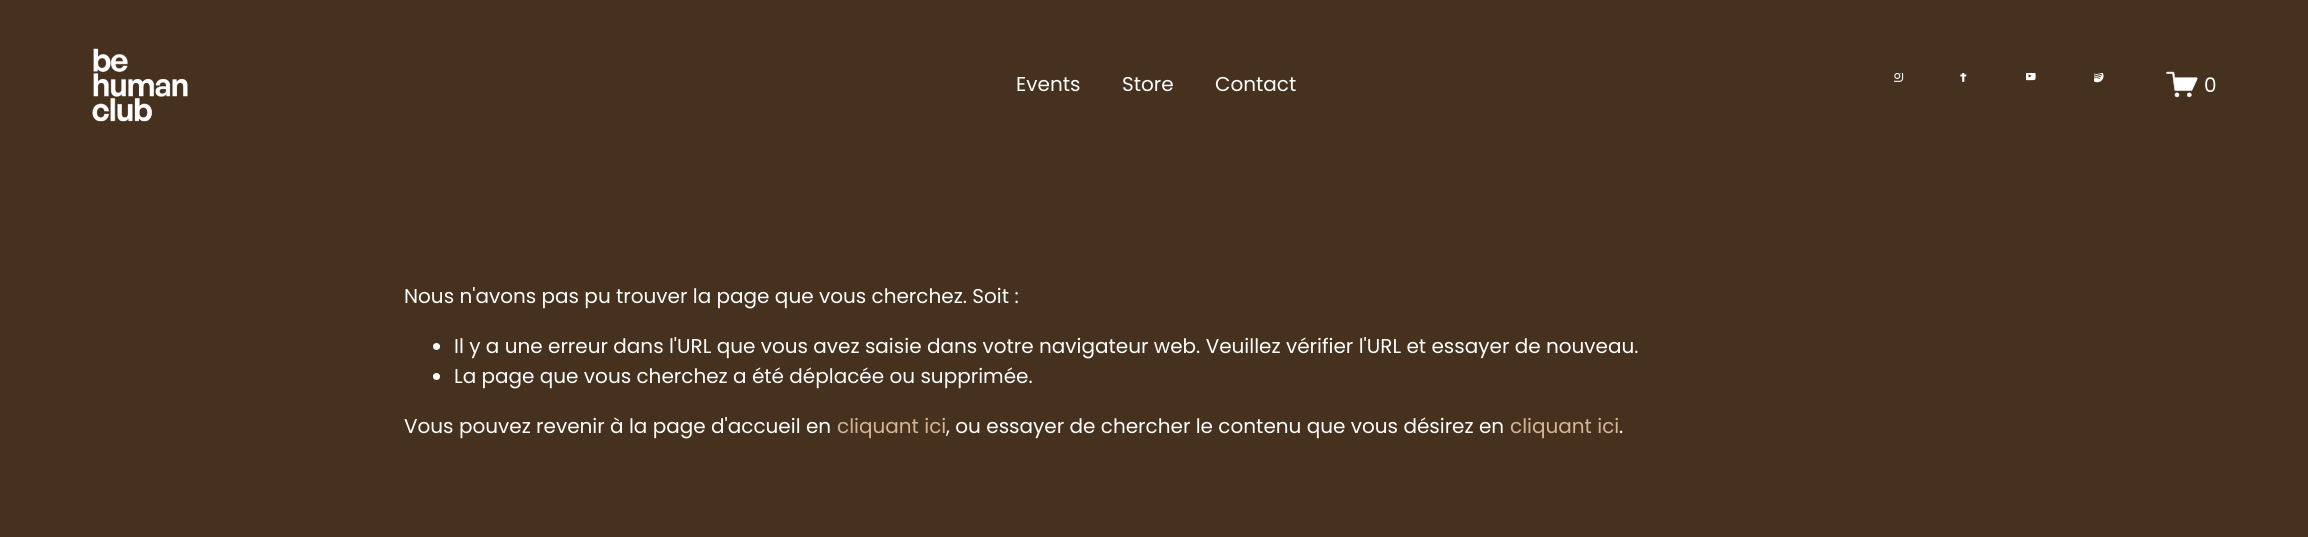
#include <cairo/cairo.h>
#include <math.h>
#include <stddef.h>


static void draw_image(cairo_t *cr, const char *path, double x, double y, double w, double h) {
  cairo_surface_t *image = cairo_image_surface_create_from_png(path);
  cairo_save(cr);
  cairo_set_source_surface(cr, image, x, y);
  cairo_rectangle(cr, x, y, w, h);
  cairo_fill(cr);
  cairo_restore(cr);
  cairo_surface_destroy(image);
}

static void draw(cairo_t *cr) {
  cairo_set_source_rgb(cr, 70 / 255.0, 49 / 255.0, 30 / 255.0);
  cairo_paint(cr);
  draw_image(cr, "images/1.png", 92, 48, 96, 74);
  draw_image(cr, "images/2.png", 1894, 73, 10, 9);
  draw_image(cr, "images/3.png", 1960, 73, 7, 9);
  draw_image(cr, "images/4.png", 2026, 73, 10, 8);
  draw_image(cr, "images/5.png", 2094, 73, 10, 10);
  draw_image(cr, "images/6.png", 2166, 71, 32, 27);
  cairo_set_source_rgb(cr, 1, 1, 1);
  cairo_arc(cr, 436.5, 346.5, 3.5, 0, 2 * M_PI);
  cairo_fill(cr);
  cairo_arc(cr, 436.5, 376.5, 3.5, 0, 2 * M_PI);
  cairo_fill(cr);
  cairo_select_font_face(cr, "Poppins", CAIRO_FONT_SLANT_NORMAL, CAIRO_FONT_WEIGHT_NORMAL);
  cairo_set_font_size(cr, 20);
  cairo_move_to(cr, 1016, 91);
  cairo_show_text(cr, "Events");
  cairo_move_to(cr, 1122, 91);
  cairo_show_text(cr, "Store");
  cairo_move_to(cr, 1215, 91);
  cairo_show_text(cr, "Contact");
  cairo_move_to(cr, 2204, 92);
  cairo_show_text(cr, "0");
  cairo_move_to(cr, 404, 303);
  cairo_show_text(cr, "Nous n'avons pas pu trouver la page que vous cherchez. Soit :");
  cairo_move_to(cr, 454, 353);
  cairo_show_text(cr, "Il y a une erreur dans l'URL que vous avez saisie dans votre navigateur web. Veuillez vérifier l'URL et essayer de nouveau.");
  cairo_move_to(cr, 454, 383);
  cairo_show_text(cr, "La page que vous cherchez a été déplacée ou supprimée.");
  cairo_move_to(cr, 404, 433);
  cairo_show_text(cr, "Vous pouvez revenir à la page d'accueil en");
  cairo_set_source_rgb(cr, 212 / 255.0, 181 / 255.0, 148 / 255.0);
  cairo_move_to(cr, 837, 433);
  cairo_show_text(cr, "cliquant ici");
  cairo_set_source_rgb(cr, 1, 1, 1);
  cairo_move_to(cr, 946, 433);
  cairo_show_text(cr, ", ou essayer de chercher le contenu que vous désirez en");
  cairo_set_source_rgb(cr, 212 / 255.0, 181 / 255.0, 148 / 255.0);
  cairo_move_to(cr, 1510, 433);
  cairo_show_text(cr, "cliquant ici");
  cairo_set_source_rgb(cr, 1, 1, 1);
  cairo_move_to(cr, 1619, 433);
  cairo_show_text(cr, ".");
}

int main(void) {
  cairo_surface_t *surface = cairo_image_surface_create(CAIRO_FORMAT_RGB24, 2308, 537);
  cairo_t *cr = cairo_create(surface);
  cairo_font_options_t *options = cairo_font_options_create();
  cairo_font_options_set_hint_metrics(options, CAIRO_HINT_METRICS_OFF);
  cairo_font_options_set_hint_style(options, CAIRO_HINT_STYLE_NONE);
  cairo_set_font_options(cr, options);
  cairo_set_miter_limit(cr, 4);
  draw(cr);
  cairo_surface_write_to_png(surface, "out.png");
  cairo_font_options_destroy(options);
  cairo_destroy(cr);
  cairo_surface_destroy(surface);
  return 0;
}
